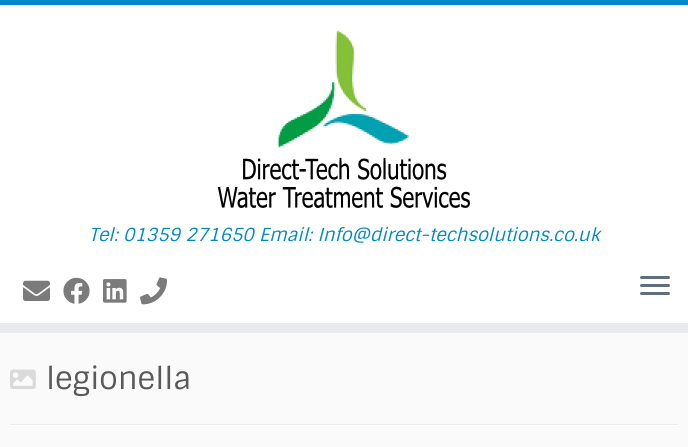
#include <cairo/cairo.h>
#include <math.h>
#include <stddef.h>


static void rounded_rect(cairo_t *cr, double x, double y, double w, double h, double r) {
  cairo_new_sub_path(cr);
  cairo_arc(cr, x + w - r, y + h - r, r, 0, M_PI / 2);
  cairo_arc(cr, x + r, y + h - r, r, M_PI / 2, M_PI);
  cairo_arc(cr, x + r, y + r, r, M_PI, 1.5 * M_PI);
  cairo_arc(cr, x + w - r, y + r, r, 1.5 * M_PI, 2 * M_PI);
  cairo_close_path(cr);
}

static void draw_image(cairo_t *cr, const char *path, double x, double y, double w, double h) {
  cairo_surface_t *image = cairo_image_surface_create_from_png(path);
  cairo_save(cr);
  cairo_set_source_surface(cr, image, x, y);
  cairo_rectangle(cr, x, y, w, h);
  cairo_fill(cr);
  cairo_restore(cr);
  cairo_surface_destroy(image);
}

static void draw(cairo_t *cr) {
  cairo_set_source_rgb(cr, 250 / 255.0, 250 / 255.0, 250 / 255.0);
  cairo_paint(cr);
  cairo_set_source_rgb(cr, 1, 1, 1);
  cairo_rectangle(cr, 0, 5, 688, 318);
  cairo_fill(cr);
  cairo_set_source_rgb(cr, 0, 136 / 255.0, 204 / 255.0);
  cairo_rectangle(cr, 0, 0, 688, 5);
  cairo_fill(cr);
  cairo_set_source_rgb(cr, 233 / 255.0, 234 / 255.0, 238 / 255.0);
  cairo_rectangle(cr, 0, 323, 688, 10);
  cairo_fill(cr);
  draw_image(cr, "images/1.png", 217, 30, 253, 178);
  draw_image(cr, "images/2.png", 23, 280, 27, 21);
  draw_image(cr, "images/3.png", 63, 277, 27, 27);
  draw_image(cr, "images/4.png", 103, 279, 24, 24);
  draw_image(cr, "images/5.png", 140, 277, 27, 28);
  cairo_set_source_rgb(cr, 95 / 255.0, 111 / 255.0, 129 / 255.0);
  rounded_rect(cr, 640, 276, 30, 3, 1.5);
  cairo_fill(cr);
  rounded_rect(cr, 640, 284, 30, 3, 1.5);
  cairo_fill(cr);
  rounded_rect(cr, 640, 292, 30, 3, 1.5);
  cairo_fill(cr);
  draw_image(cr, "images/6.png", 10, 369, 26, 20);
  cairo_set_source_rgb(cr, 238 / 255.0, 238 / 255.0, 238 / 255.0);
  cairo_rectangle(cr, 10, 424, 668, 1);
  cairo_fill(cr);
  cairo_set_source_rgb(cr, 1, 1, 1);
  cairo_rectangle(cr, 10, 425, 668, 1);
  cairo_fill(cr);
  cairo_select_font_face(cr, "Sintony", CAIRO_FONT_SLANT_ITALIC, CAIRO_FONT_WEIGHT_NORMAL);
  cairo_set_font_size(cr, 18);
  cairo_set_source_rgb(cr, 0, 136 / 255.0, 204 / 255.0);
  cairo_move_to(cr, 89, 241);
  cairo_show_text(cr, "Tel: 01359 271650 Email: Info@direct-techsolutions.co.uk");
  cairo_select_font_face(cr, "Sintony", CAIRO_FONT_SLANT_NORMAL, CAIRO_FONT_WEIGHT_NORMAL);
  cairo_set_font_size(cr, 30.5);
  cairo_set_source_rgb(cr, 90 / 255.0, 90 / 255.0, 90 / 255.0);
  cairo_move_to(cr, 46, 389);
  cairo_show_text(cr, "legionella");
}

int main(void) {
  cairo_surface_t *surface = cairo_image_surface_create(CAIRO_FORMAT_RGB24, 688, 447);
  cairo_t *cr = cairo_create(surface);
  cairo_font_options_t *options = cairo_font_options_create();
  cairo_font_options_set_hint_metrics(options, CAIRO_HINT_METRICS_OFF);
  cairo_font_options_set_hint_style(options, CAIRO_HINT_STYLE_NONE);
  cairo_set_font_options(cr, options);
  cairo_set_miter_limit(cr, 4);
  draw(cr);
  cairo_surface_write_to_png(surface, "out.png");
  cairo_font_options_destroy(options);
  cairo_destroy(cr);
  cairo_surface_destroy(surface);
  return 0;
}
